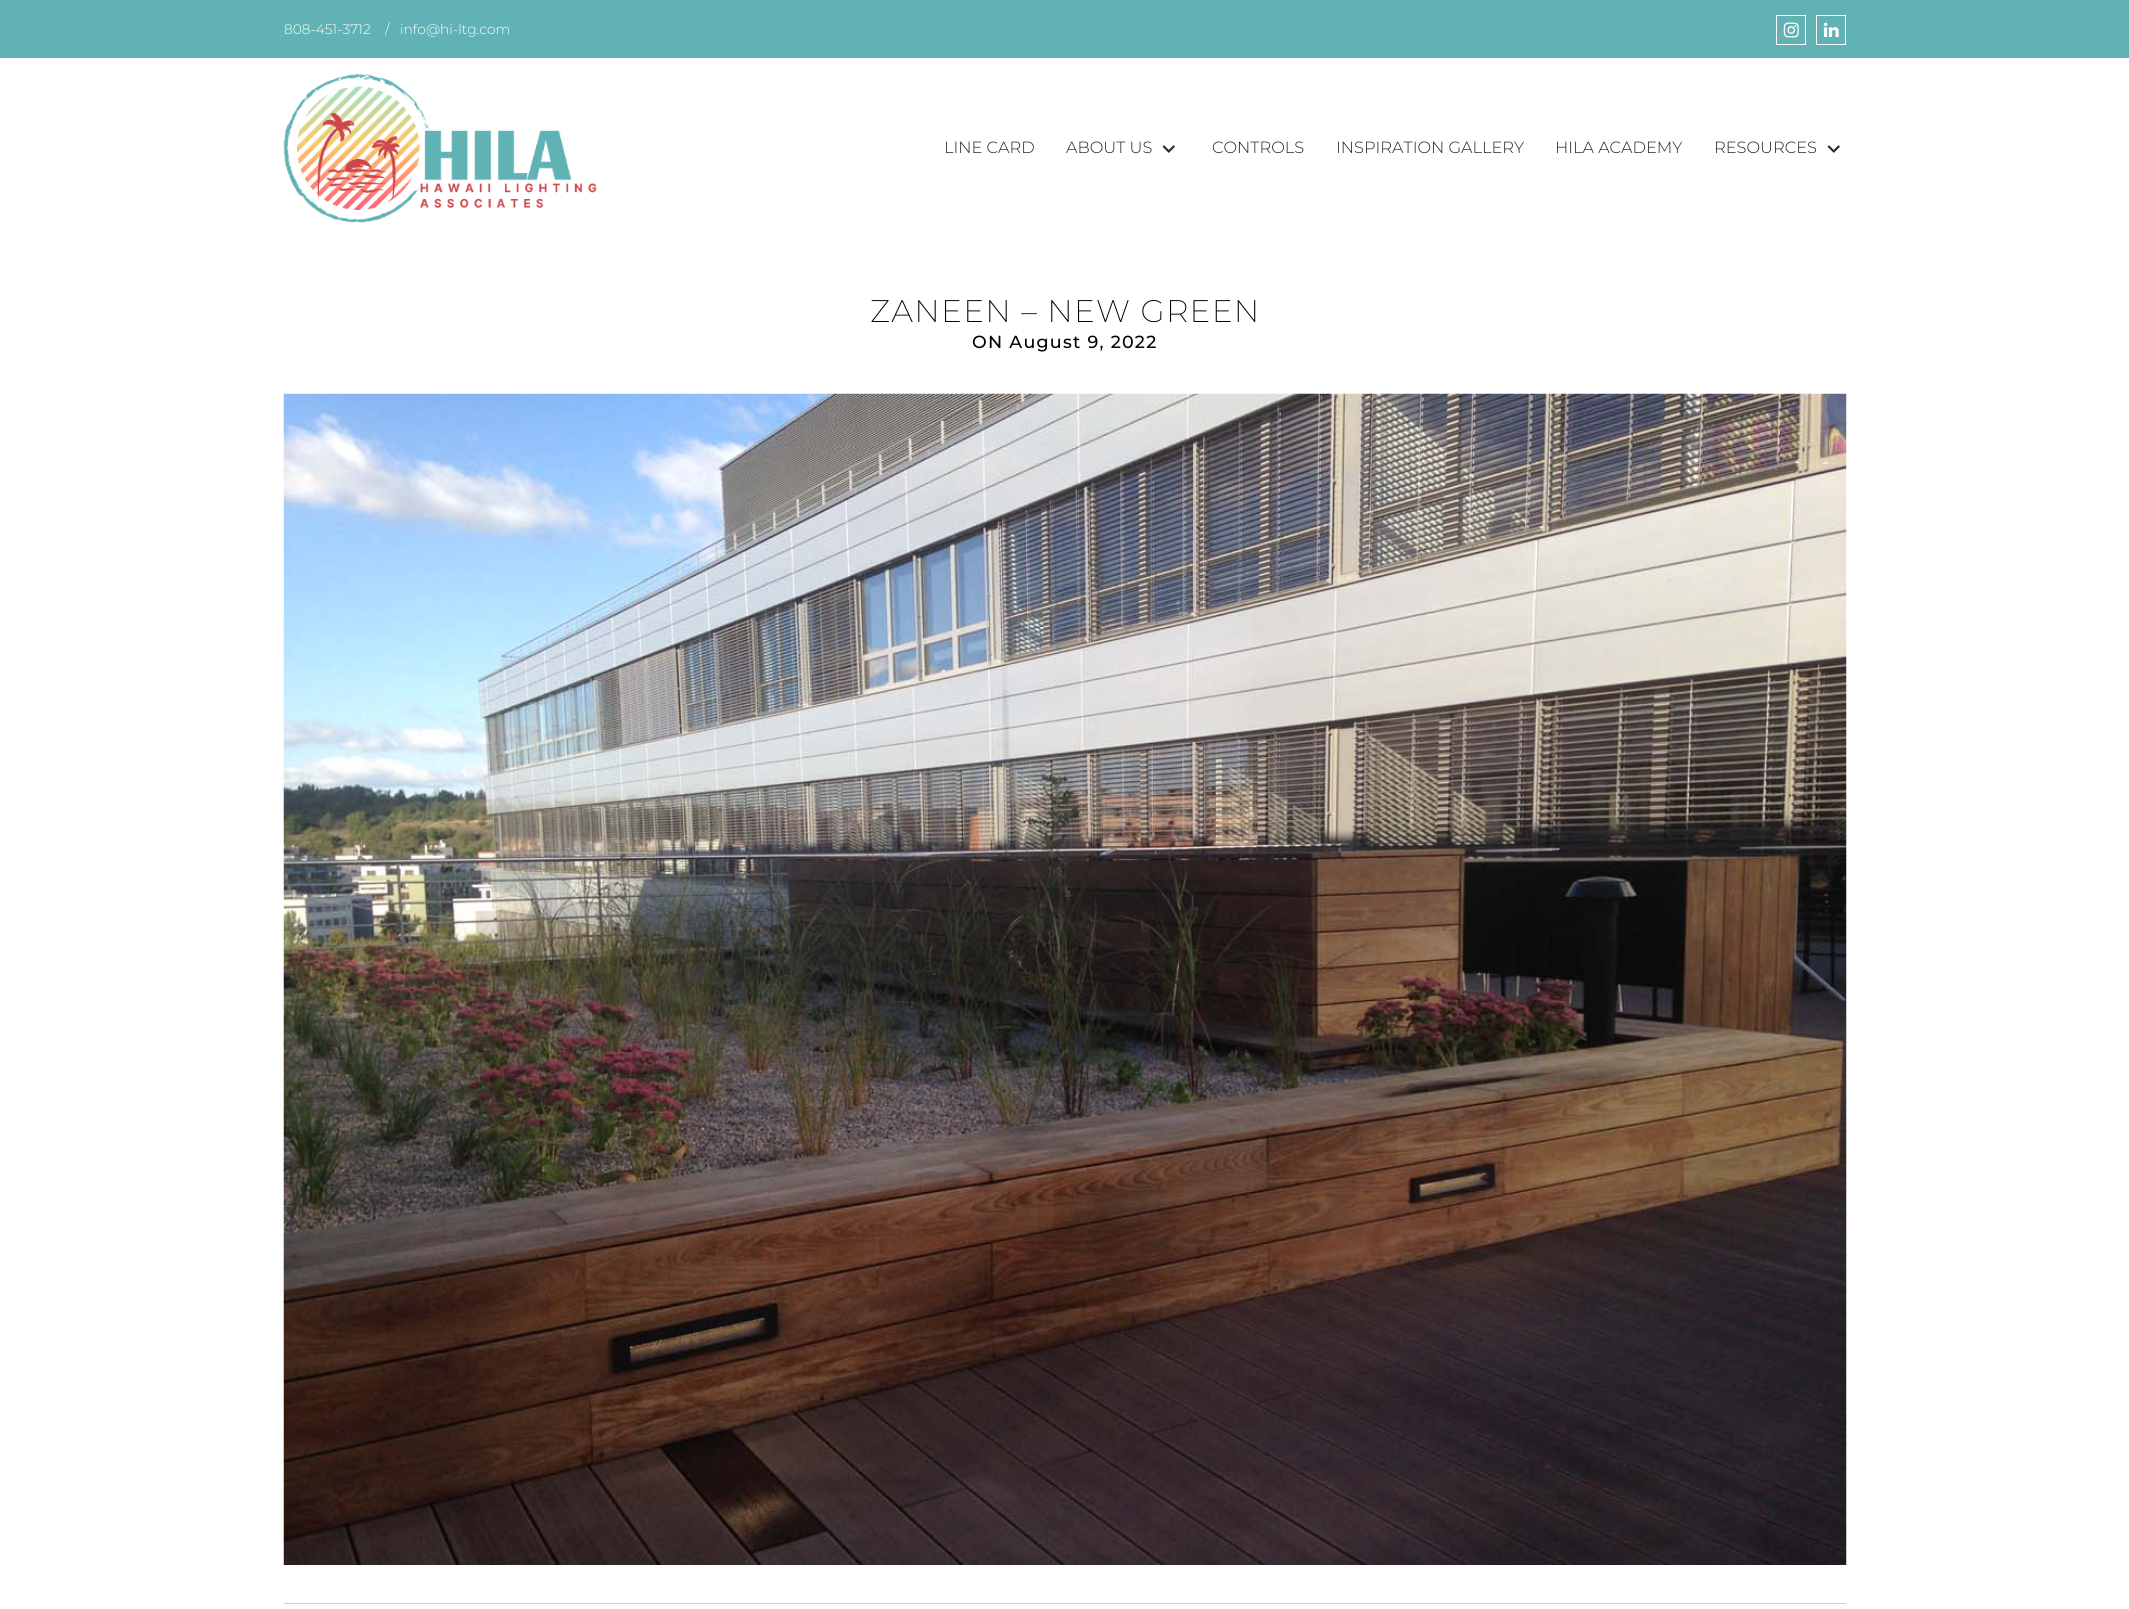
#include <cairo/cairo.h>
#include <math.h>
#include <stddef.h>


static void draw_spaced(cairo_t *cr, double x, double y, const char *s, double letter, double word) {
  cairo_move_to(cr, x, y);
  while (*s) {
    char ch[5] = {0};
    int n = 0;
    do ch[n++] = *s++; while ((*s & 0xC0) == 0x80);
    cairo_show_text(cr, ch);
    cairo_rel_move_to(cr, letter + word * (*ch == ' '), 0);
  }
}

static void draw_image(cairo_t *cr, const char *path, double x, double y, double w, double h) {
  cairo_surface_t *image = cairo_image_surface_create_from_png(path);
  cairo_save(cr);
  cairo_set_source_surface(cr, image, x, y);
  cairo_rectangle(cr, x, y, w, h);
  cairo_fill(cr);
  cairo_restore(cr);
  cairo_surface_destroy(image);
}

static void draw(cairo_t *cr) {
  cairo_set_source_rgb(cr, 1, 1, 1);
  cairo_paint(cr);
  cairo_set_source_rgb(cr, 96 / 255.0, 178 / 255.0, 180 / 255.0);
  cairo_rectangle(cr, 0, 0, 2129, 58);
  cairo_fill(cr);
  cairo_rectangle(cr, 1776.5, 15.5, 29, 29);
  cairo_set_source_rgb(cr, 1, 1, 1);
  cairo_set_line_width(cr, 1);
  cairo_stroke(cr);
  draw_image(cr, "images/1.png", 1783, 22, 16, 16);
  cairo_rectangle(cr, 1816.5, 15.5, 29, 29);
  cairo_stroke(cr);
  draw_image(cr, "images/2.png", 1823, 22, 16, 15);
  draw_image(cr, "images/3.png", 283, 73, 314, 150);
  draw_image(cr, "images/4.png", 1162, 145, 13, 8);
  draw_image(cr, "images/4.png", 1827, 145, 13, 8);
  draw_image(cr, "images/5.png", 283, 393, 1564, 1172);
  cairo_set_source_rgb(cr, 209 / 255.0, 209 / 255.0, 209 / 255.0);
  cairo_rectangle(cr, 284, 1603, 1562, 1);
  cairo_fill(cr);
  cairo_select_font_face(cr, "Montserrat Light", CAIRO_FONT_SLANT_NORMAL, CAIRO_FONT_WEIGHT_NORMAL);
  cairo_set_font_size(cr, 13.75);
  cairo_set_source_rgb(cr, 1, 1, 1);
  cairo_move_to(cr, 284, 34);
  cairo_show_text(cr, "808-451-3712");
  cairo_move_to(cr, 385, 34);
  cairo_show_text(cr, "/");
  cairo_move_to(cr, 400, 34);
  cairo_show_text(cr, "info@hi-ltg.com");
  cairo_set_font_size(cr, 16.25);
  cairo_set_source_rgb(cr, 38 / 255.0, 38 / 255.0, 38 / 255.0);
  cairo_move_to(cr, 944, 153);
  cairo_show_text(cr, "LINE CARD");
  cairo_move_to(cr, 1066, 153);
  cairo_show_text(cr, "ABOUT US");
  cairo_move_to(cr, 1212, 153);
  cairo_show_text(cr, "CONTROLS");
  cairo_move_to(cr, 1336, 153);
  cairo_show_text(cr, "INSPIRATION GALLERY");
  cairo_move_to(cr, 1555, 153);
  cairo_show_text(cr, "HILA ACADEMY");
  cairo_move_to(cr, 1714, 153);
  cairo_show_text(cr, "RESOURCES");
  cairo_select_font_face(cr, "Montserrat ExtraLight", CAIRO_FONT_SLANT_NORMAL, CAIRO_FONT_WEIGHT_NORMAL);
  cairo_set_font_size(cr, 31.25);
  cairo_set_source_rgb(cr, 0, 0, 0);
  draw_spaced(cr, 870, 322, "ZANEEN – NEW GREEN", 1.25, 0);
  cairo_select_font_face(cr, "Montserrat Medium", CAIRO_FONT_SLANT_NORMAL, CAIRO_FONT_WEIGHT_NORMAL);
  cairo_set_font_size(cr, 17.5);
  draw_spaced(cr, 972, 348, "ON August 9, 2022", 1.25, 0);
}

int main(void) {
  cairo_surface_t *surface = cairo_image_surface_create(CAIRO_FORMAT_RGB24, 2129, 1609);
  cairo_t *cr = cairo_create(surface);
  cairo_font_options_t *options = cairo_font_options_create();
  cairo_font_options_set_hint_metrics(options, CAIRO_HINT_METRICS_OFF);
  cairo_font_options_set_hint_style(options, CAIRO_HINT_STYLE_NONE);
  cairo_set_font_options(cr, options);
  cairo_set_miter_limit(cr, 4);
  draw(cr);
  cairo_surface_write_to_png(surface, "out.png");
  cairo_font_options_destroy(options);
  cairo_destroy(cr);
  cairo_surface_destroy(surface);
  return 0;
}
